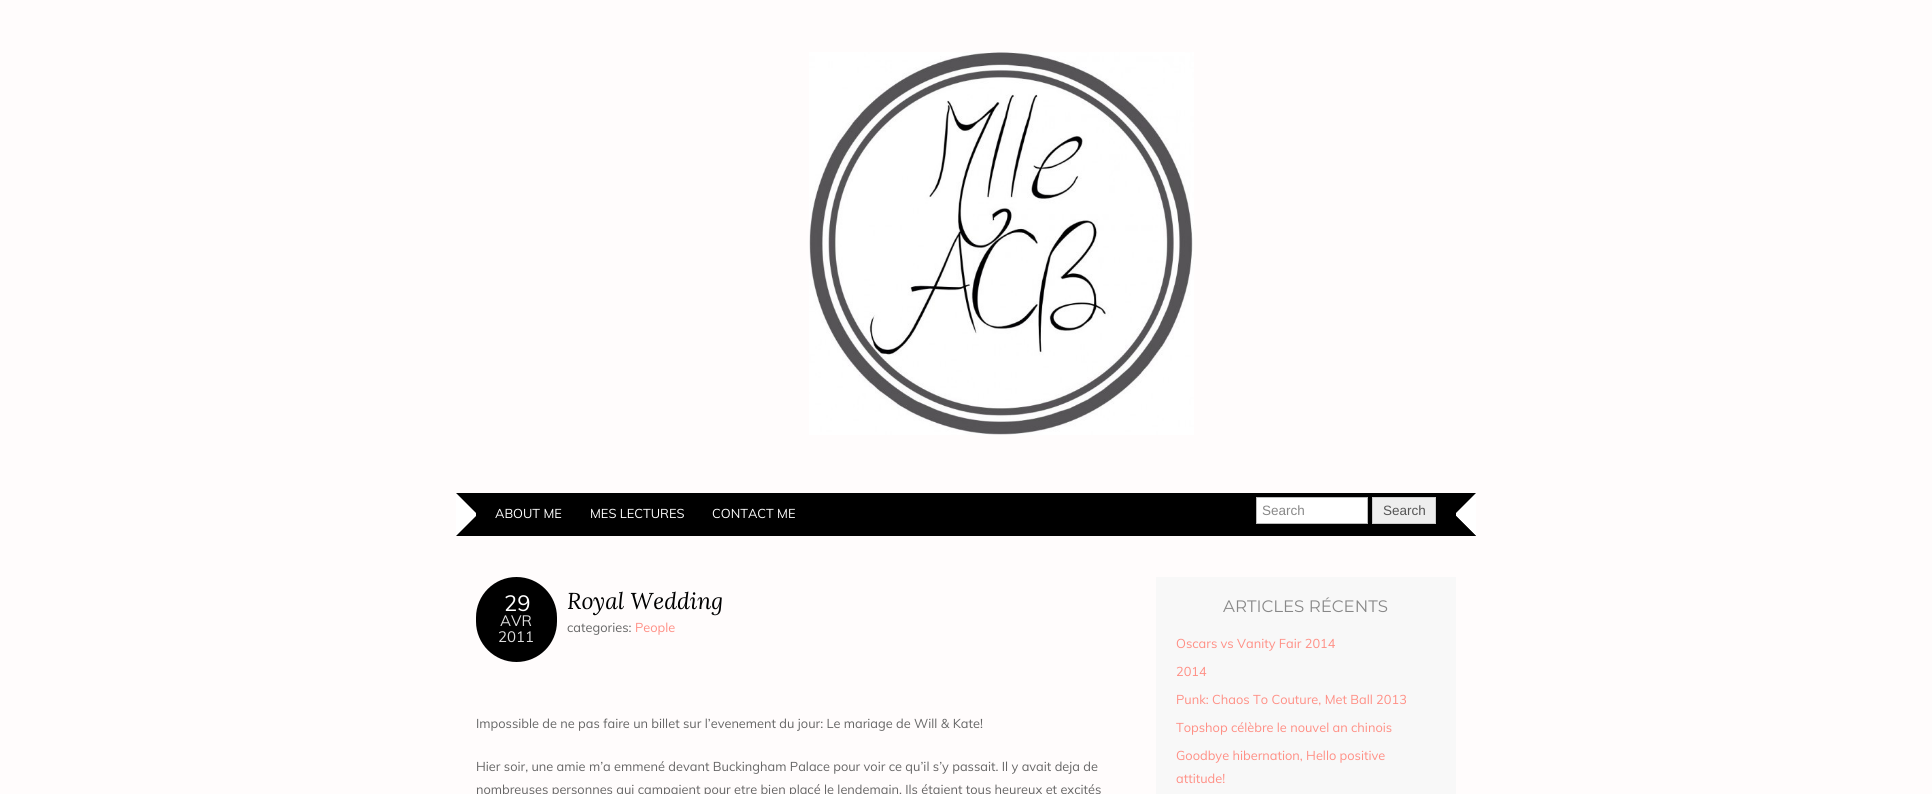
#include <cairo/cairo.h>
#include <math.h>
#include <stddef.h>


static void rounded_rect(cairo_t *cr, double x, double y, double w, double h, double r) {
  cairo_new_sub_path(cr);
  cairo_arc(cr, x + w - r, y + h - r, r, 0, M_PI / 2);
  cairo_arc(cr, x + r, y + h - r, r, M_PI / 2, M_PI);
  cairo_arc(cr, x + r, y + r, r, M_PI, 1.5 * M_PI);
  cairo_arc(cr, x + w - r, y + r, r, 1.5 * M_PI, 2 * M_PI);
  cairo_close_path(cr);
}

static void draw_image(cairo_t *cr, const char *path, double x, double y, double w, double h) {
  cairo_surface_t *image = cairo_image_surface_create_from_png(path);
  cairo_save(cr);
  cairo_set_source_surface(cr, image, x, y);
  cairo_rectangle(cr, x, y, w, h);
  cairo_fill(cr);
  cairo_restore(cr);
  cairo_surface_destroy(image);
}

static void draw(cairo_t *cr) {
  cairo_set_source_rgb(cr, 1, 252 / 255.0, 252 / 255.0);
  cairo_paint(cr);
  draw_image(cr, "images/1.png", 809, 52, 385, 383);
  cairo_set_source_rgb(cr, 0, 0, 0);
  cairo_rectangle(cr, 456, 493, 1020, 43);
  cairo_fill(cr);
  cairo_set_source_rgb(cr, 1, 1, 1);
  cairo_new_path(cr);
  cairo_move_to(cr, 456, 536);
  cairo_line_to(cr, 456, 493);
  cairo_line_to(cr, 476, 513);
  cairo_line_to(cr, 476, 516);
  cairo_close_path(cr);
  cairo_fill(cr);
  cairo_rectangle(cr, 1256.5, 497.5, 111, 26);
  cairo_fill_preserve(cr);
  cairo_set_source_rgb(cr, 187 / 255.0, 187 / 255.0, 187 / 255.0);
  cairo_set_line_width(cr, 1);
  cairo_stroke(cr);
  cairo_set_source_rgb(cr, 238 / 255.0, 238 / 255.0, 238 / 255.0);
  cairo_rectangle(cr, 1372.5, 497.5, 63, 26);
  cairo_fill_preserve(cr);
  cairo_set_source_rgb(cr, 204 / 255.0, 204 / 255.0, 204 / 255.0);
  cairo_stroke(cr);
  cairo_set_source_rgb(cr, 1, 1, 1);
  cairo_new_path(cr);
  cairo_move_to(cr, 1476, 493);
  cairo_line_to(cr, 1476, 536);
  cairo_line_to(cr, 1456, 516);
  cairo_line_to(cr, 1456, 513);
  cairo_close_path(cr);
  cairo_fill(cr);
  cairo_set_source_rgb(cr, 0, 0, 0);
  cairo_new_path(cr);
  cairo_move_to(cr, 1476, 536);
  cairo_line_to(cr, 1439, 536);
  cairo_line_to(cr, 1456, 516);
  cairo_close_path(cr);
  cairo_fill(cr);
  rounded_rect(cr, 476, 577, 81, 85, 40.5);
  cairo_fill(cr);
  cairo_set_source_rgb(cr, 248 / 255.0, 248 / 255.0, 248 / 255.0);
  cairo_rectangle(cr, 1156, 577, 300, 217);
  cairo_fill(cr);
  cairo_select_font_face(cr, "Muli", CAIRO_FONT_SLANT_NORMAL, CAIRO_FONT_WEIGHT_NORMAL);
  cairo_set_font_size(cr, 12.8);
  cairo_set_source_rgb(cr, 1, 1, 1);
  cairo_move_to(cr, 495, 518);
  cairo_show_text(cr, "ABOUT ME");
  cairo_move_to(cr, 590, 518);
  cairo_show_text(cr, "MES LECTURES");
  cairo_move_to(cr, 712, 518);
  cairo_show_text(cr, "CONTACT ME");
  cairo_select_font_face(cr, "Liberation Sans", CAIRO_FONT_SLANT_NORMAL, CAIRO_FONT_WEIGHT_NORMAL);
  cairo_set_font_size(cr, 13.5);
  cairo_set_source_rgb(cr, 136 / 255.0, 136 / 255.0, 136 / 255.0);
  cairo_move_to(cr, 1262, 515);
  cairo_show_text(cr, "Search");
  cairo_set_source_rgb(cr, 85 / 255.0, 85 / 255.0, 85 / 255.0);
  cairo_move_to(cr, 1383, 515);
  cairo_show_text(cr, "Search");
  cairo_select_font_face(cr, "Muli", CAIRO_FONT_SLANT_NORMAL, CAIRO_FONT_WEIGHT_NORMAL);
  cairo_set_font_size(cr, 22);
  cairo_set_source_rgb(cr, 1, 1, 1);
  cairo_move_to(cr, 504, 611);
  cairo_show_text(cr, "29");
  cairo_set_font_size(cr, 15);
  cairo_set_source_rgb(cr, 221 / 255.0, 221 / 255.0, 221 / 255.0);
  cairo_move_to(cr, 500, 626);
  cairo_show_text(cr, "AVR");
  cairo_move_to(cr, 498, 642);
  cairo_show_text(cr, "2011");
  cairo_select_font_face(cr, "Lora", CAIRO_FONT_SLANT_ITALIC, CAIRO_FONT_WEIGHT_NORMAL);
  cairo_set_font_size(cr, 23);
  cairo_set_source_rgb(cr, 0, 0, 0);
  cairo_move_to(cr, 567, 609);
  cairo_show_text(cr, "Royal Wedding");
  cairo_select_font_face(cr, "Muli", CAIRO_FONT_SLANT_NORMAL, CAIRO_FONT_WEIGHT_NORMAL);
  cairo_set_font_size(cr, 12.8);
  cairo_set_source_rgb(cr, 102 / 255.0, 102 / 255.0, 102 / 255.0);
  cairo_move_to(cr, 567, 632);
  cairo_show_text(cr, "categories:");
  cairo_set_source_rgb(cr, 1, 143 / 255.0, 133 / 255.0);
  cairo_move_to(cr, 635, 632);
  cairo_show_text(cr, "People");
  cairo_set_source_rgb(cr, 102 / 255.0, 102 / 255.0, 102 / 255.0);
  cairo_move_to(cr, 476, 728);
  cairo_show_text(cr, "Impossible de ne pas faire un billet sur l’evenement du jour: Le mariage de Will & Kate!");
  cairo_move_to(cr, 476, 771);
  cairo_show_text(cr, "Hier soir, une amie m’a emmené devant Buckingham Palace pour voir ce qu’il s’y passait. Il y avait deja de");
  cairo_move_to(cr, 476, 794);
  cairo_show_text(cr, "nombreuses personnes qui campaient pour etre bien placé le lendemain. Ils étaient tous heureux et excités");
  cairo_select_font_face(cr, "Montserrat", CAIRO_FONT_SLANT_NORMAL, CAIRO_FONT_WEIGHT_NORMAL);
  cairo_set_font_size(cr, 16.6);
  cairo_set_source_rgb(cr, 136 / 255.0, 136 / 255.0, 136 / 255.0);
  cairo_move_to(cr, 1223, 612);
  cairo_show_text(cr, "ARTICLES RÉCENTS");
  cairo_select_font_face(cr, "Muli", CAIRO_FONT_SLANT_NORMAL, CAIRO_FONT_WEIGHT_NORMAL);
  cairo_set_font_size(cr, 12.8);
  cairo_set_source_rgb(cr, 1, 143 / 255.0, 133 / 255.0);
  cairo_move_to(cr, 1176, 648);
  cairo_show_text(cr, "Oscars vs Vanity Fair 2014");
  cairo_move_to(cr, 1176, 676);
  cairo_show_text(cr, "2014");
  cairo_move_to(cr, 1176, 704);
  cairo_show_text(cr, "Punk: Chaos To Couture, Met Ball 2013");
  cairo_move_to(cr, 1176, 732);
  cairo_show_text(cr, "Topshop célèbre le nouvel an chinois");
  cairo_move_to(cr, 1176, 760);
  cairo_show_text(cr, "Goodbye hibernation, Hello positive");
  cairo_move_to(cr, 1176, 783);
  cairo_show_text(cr, "attitude!");
}

int main(void) {
  cairo_surface_t *surface = cairo_image_surface_create(CAIRO_FORMAT_RGB24, 1932, 794);
  cairo_t *cr = cairo_create(surface);
  cairo_font_options_t *options = cairo_font_options_create();
  cairo_font_options_set_hint_metrics(options, CAIRO_HINT_METRICS_OFF);
  cairo_font_options_set_hint_style(options, CAIRO_HINT_STYLE_NONE);
  cairo_set_font_options(cr, options);
  cairo_set_miter_limit(cr, 4);
  draw(cr);
  cairo_surface_write_to_png(surface, "out.png");
  cairo_font_options_destroy(options);
  cairo_destroy(cr);
  cairo_surface_destroy(surface);
  return 0;
}
